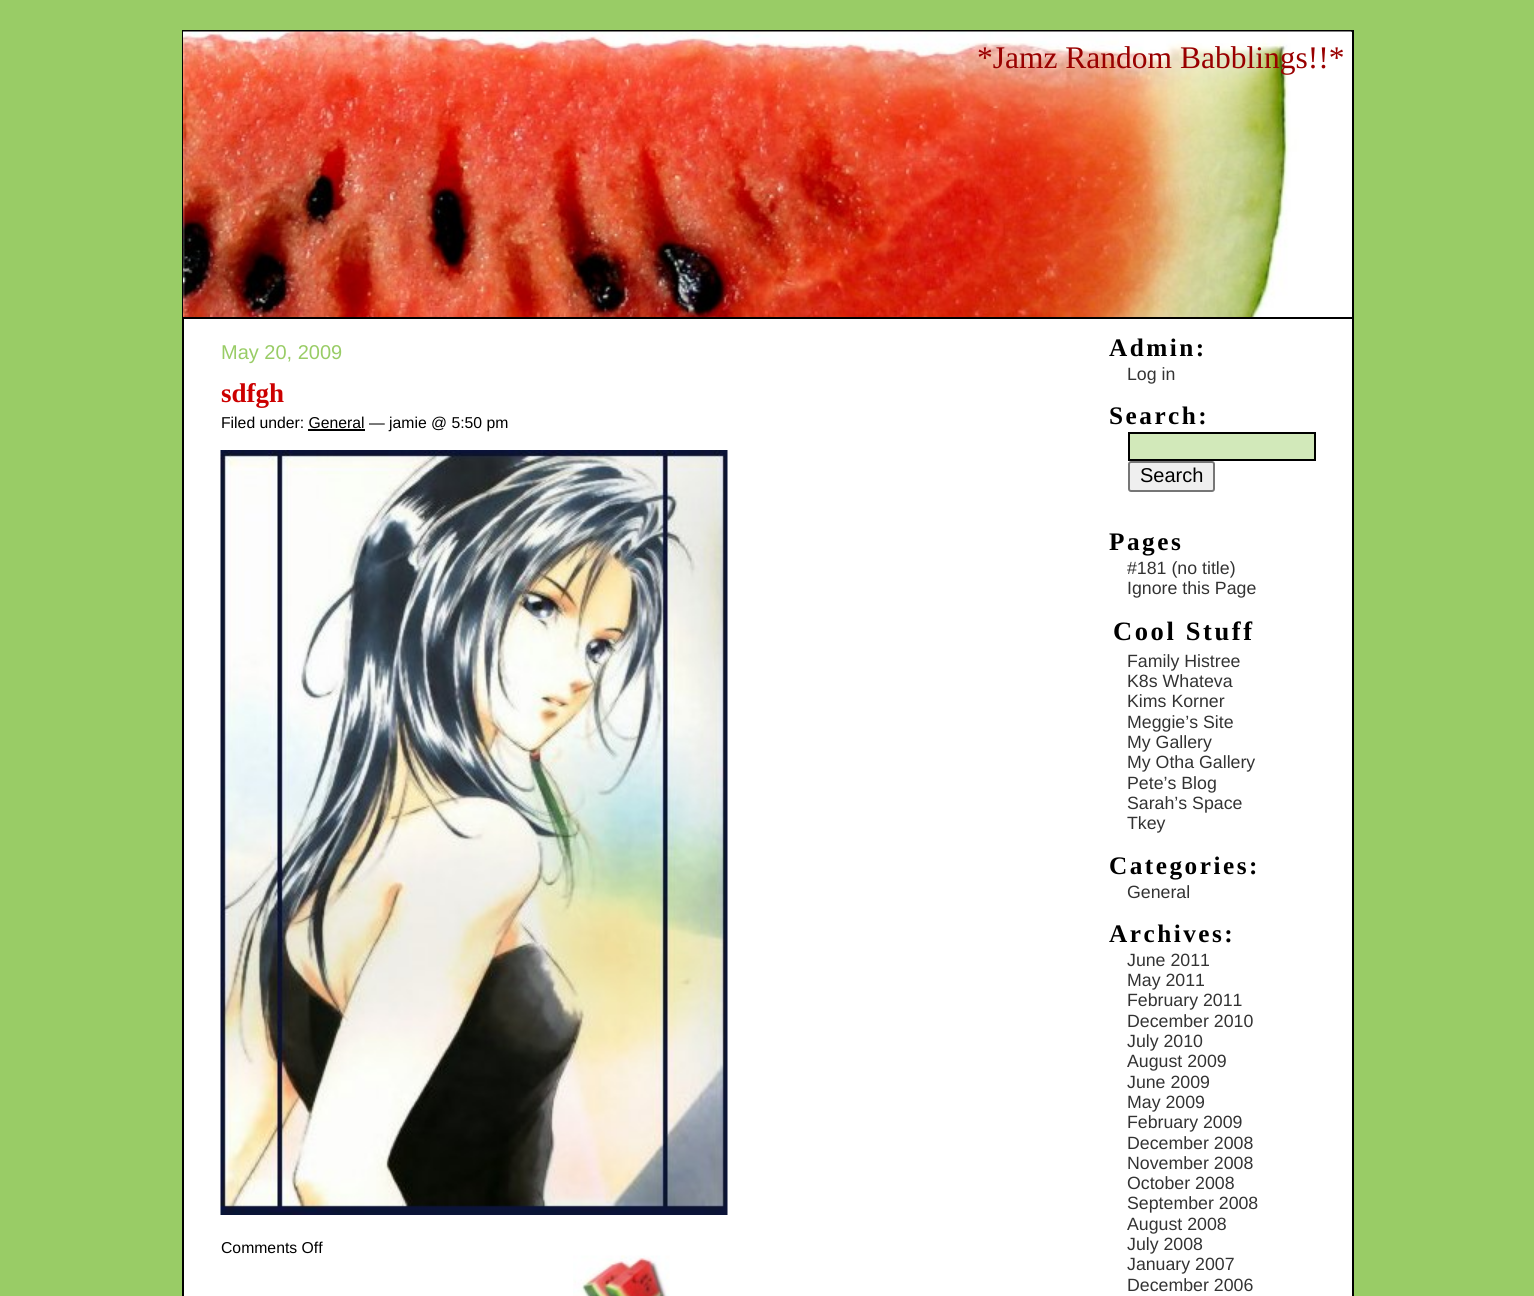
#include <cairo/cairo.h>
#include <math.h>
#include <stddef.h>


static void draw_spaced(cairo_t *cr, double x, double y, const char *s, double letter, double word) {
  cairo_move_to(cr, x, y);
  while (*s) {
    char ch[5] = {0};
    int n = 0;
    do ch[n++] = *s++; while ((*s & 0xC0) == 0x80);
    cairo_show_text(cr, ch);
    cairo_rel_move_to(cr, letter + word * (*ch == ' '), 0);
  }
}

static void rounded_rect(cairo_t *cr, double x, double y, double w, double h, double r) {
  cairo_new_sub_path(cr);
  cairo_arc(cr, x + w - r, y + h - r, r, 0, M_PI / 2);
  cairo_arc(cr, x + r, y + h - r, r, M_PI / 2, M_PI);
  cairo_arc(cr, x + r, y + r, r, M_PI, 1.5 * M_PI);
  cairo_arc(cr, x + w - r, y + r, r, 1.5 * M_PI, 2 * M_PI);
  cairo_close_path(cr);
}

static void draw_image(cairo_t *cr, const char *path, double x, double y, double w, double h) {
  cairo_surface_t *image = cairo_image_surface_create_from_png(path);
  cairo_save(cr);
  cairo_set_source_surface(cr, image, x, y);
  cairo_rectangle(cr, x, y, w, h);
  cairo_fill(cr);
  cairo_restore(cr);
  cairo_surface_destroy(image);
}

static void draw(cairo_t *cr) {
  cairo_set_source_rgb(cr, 153 / 255.0, 204 / 255.0, 102 / 255.0);
  cairo_paint(cr);
  cairo_set_source_rgb(cr, 1, 1, 1);
  cairo_rectangle(cr, 184, 319, 1168, 977);
  cairo_fill(cr);
  cairo_set_source_rgb(cr, 0, 0, 0);
  cairo_rectangle(cr, 182, 30, 1171, 2);
  cairo_fill(cr);
  cairo_rectangle(cr, 1352, 30, 2, 1266);
  cairo_fill(cr);
  cairo_rectangle(cr, 182, 30, 2, 1266);
  cairo_fill(cr);
  cairo_set_source_rgb(cr, 1, 1, 1);
  cairo_rectangle(cr, 1351, 32, 1, 285);
  cairo_fill(cr);
  draw_image(cr, "images/1.png", 183, 31, 1169, 286);
  cairo_set_source_rgb(cr, 0, 0, 0);
  cairo_rectangle(cr, 183, 317, 1169, 2);
  cairo_fill(cr);
  draw_image(cr, "images/2.png", 573, 1255, 97, 41);
  cairo_rectangle(cr, 308, 429, 57, 2);
  cairo_fill(cr);
  draw_image(cr, "images/3.png", 220, 450, 508, 765);
  cairo_set_source_rgb(cr, 210 / 255.0, 233 / 255.0, 186 / 255.0);
  cairo_rectangle(cr, 1129, 433, 186, 27);
  cairo_fill_preserve(cr);
  cairo_set_source_rgb(cr, 0, 0, 0);
  cairo_stroke(cr);
  cairo_set_source_rgb(cr, 239 / 255.0, 239 / 255.0, 239 / 255.0);
  rounded_rect(cr, 1129, 462, 85, 29, 2);
  cairo_fill_preserve(cr);
  cairo_set_source_rgb(cr, 118 / 255.0, 118 / 255.0, 118 / 255.0);
  cairo_stroke(cr);
  cairo_select_font_face(cr, "Liberation Serif", CAIRO_FONT_SLANT_NORMAL, CAIRO_FONT_WEIGHT_NORMAL);
  cairo_set_font_size(cr, 31.5);
  cairo_set_source_rgb(cr, 153 / 255.0, 0, 0);
  cairo_move_to(cr, 977, 68);
  cairo_show_text(cr, "*Jamz Random Babblings!!*");
  cairo_select_font_face(cr, "Liberation Sans", CAIRO_FONT_SLANT_NORMAL, CAIRO_FONT_WEIGHT_NORMAL);
  cairo_set_font_size(cr, 20);
  cairo_set_source_rgb(cr, 153 / 255.0, 204 / 255.0, 102 / 255.0);
  cairo_move_to(cr, 221, 359);
  cairo_show_text(cr, "May 20, 2009");
  cairo_select_font_face(cr, "Liberation Serif", CAIRO_FONT_SLANT_NORMAL, CAIRO_FONT_WEIGHT_BOLD);
  cairo_set_font_size(cr, 27);
  cairo_set_source_rgb(cr, 204 / 255.0, 0, 0);
  cairo_move_to(cr, 221, 402);
  cairo_show_text(cr, "sdfgh");
  cairo_select_font_face(cr, "Liberation Sans", CAIRO_FONT_SLANT_NORMAL, CAIRO_FONT_WEIGHT_NORMAL);
  cairo_set_font_size(cr, 15.75);
  cairo_set_source_rgb(cr, 0, 0, 0);
  cairo_move_to(cr, 221, 428);
  cairo_show_text(cr, "Filed under: General — jamie @ 5:50 pm");
  cairo_move_to(cr, 221, 1253);
  cairo_show_text(cr, "Comments Off");
  cairo_select_font_face(cr, "Liberation Serif", CAIRO_FONT_SLANT_NORMAL, CAIRO_FONT_WEIGHT_BOLD);
  cairo_set_font_size(cr, 25.25);
  draw_spaced(cr, 1109, 356, "Admin:", 2.5, 0);
  cairo_select_font_face(cr, "Liberation Sans", CAIRO_FONT_SLANT_NORMAL, CAIRO_FONT_WEIGHT_NORMAL);
  cairo_set_font_size(cr, 17.75);
  cairo_set_source_rgb(cr, 51 / 255.0, 51 / 255.0, 51 / 255.0);
  cairo_move_to(cr, 1127, 380);
  cairo_show_text(cr, "Log in");
  cairo_select_font_face(cr, "Liberation Serif", CAIRO_FONT_SLANT_NORMAL, CAIRO_FONT_WEIGHT_BOLD);
  cairo_set_font_size(cr, 25.25);
  cairo_set_source_rgb(cr, 0, 0, 0);
  draw_spaced(cr, 1109, 424, "Search:", 2.5, 0);
  cairo_select_font_face(cr, "Liberation Sans", CAIRO_FONT_SLANT_NORMAL, CAIRO_FONT_WEIGHT_NORMAL);
  cairo_set_font_size(cr, 20);
  cairo_move_to(cr, 1140, 482);
  cairo_show_text(cr, "Search");
  cairo_select_font_face(cr, "Liberation Serif", CAIRO_FONT_SLANT_NORMAL, CAIRO_FONT_WEIGHT_BOLD);
  cairo_set_font_size(cr, 25.25);
  draw_spaced(cr, 1109, 550, "Pages", 2.5, 0);
  cairo_select_font_face(cr, "Liberation Sans", CAIRO_FONT_SLANT_NORMAL, CAIRO_FONT_WEIGHT_NORMAL);
  cairo_set_font_size(cr, 17.75);
  cairo_set_source_rgb(cr, 51 / 255.0, 51 / 255.0, 51 / 255.0);
  cairo_move_to(cr, 1127, 574);
  cairo_show_text(cr, "#181 (no title)");
  cairo_move_to(cr, 1127, 594);
  cairo_show_text(cr, "Ignore this Page");
  cairo_select_font_face(cr, "Liberation Serif", CAIRO_FONT_SLANT_NORMAL, CAIRO_FONT_WEIGHT_BOLD);
  cairo_set_font_size(cr, 26.5);
  cairo_set_source_rgb(cr, 0, 0, 0);
  draw_spaced(cr, 1113, 640, "Cool Stuff", 2.6, 0);
  cairo_select_font_face(cr, "Liberation Sans", CAIRO_FONT_SLANT_NORMAL, CAIRO_FONT_WEIGHT_NORMAL);
  cairo_set_font_size(cr, 17.75);
  cairo_set_source_rgb(cr, 51 / 255.0, 51 / 255.0, 51 / 255.0);
  cairo_move_to(cr, 1127, 667);
  cairo_show_text(cr, "Family Histree");
  cairo_move_to(cr, 1127, 687);
  cairo_show_text(cr, "K8s Whateva");
  cairo_move_to(cr, 1127, 707);
  cairo_show_text(cr, "Kims Korner");
  cairo_move_to(cr, 1127, 728);
  cairo_show_text(cr, "Meggie’s Site");
  cairo_move_to(cr, 1127, 748);
  cairo_show_text(cr, "My Gallery");
  cairo_move_to(cr, 1127, 768);
  cairo_show_text(cr, "My Otha Gallery");
  cairo_move_to(cr, 1127, 789);
  cairo_show_text(cr, "Pete’s Blog");
  cairo_move_to(cr, 1127, 809);
  cairo_show_text(cr, "Sarah’s Space");
  cairo_move_to(cr, 1127, 829);
  cairo_show_text(cr, "Tkey");
  cairo_select_font_face(cr, "Liberation Serif", CAIRO_FONT_SLANT_NORMAL, CAIRO_FONT_WEIGHT_BOLD);
  cairo_set_font_size(cr, 25.25);
  cairo_set_source_rgb(cr, 0, 0, 0);
  draw_spaced(cr, 1109, 874, "Categories:", 2.5, 0);
  cairo_select_font_face(cr, "Liberation Sans", CAIRO_FONT_SLANT_NORMAL, CAIRO_FONT_WEIGHT_NORMAL);
  cairo_set_font_size(cr, 17.75);
  cairo_set_source_rgb(cr, 51 / 255.0, 51 / 255.0, 51 / 255.0);
  cairo_move_to(cr, 1127, 898);
  cairo_show_text(cr, "General");
  cairo_select_font_face(cr, "Liberation Serif", CAIRO_FONT_SLANT_NORMAL, CAIRO_FONT_WEIGHT_BOLD);
  cairo_set_font_size(cr, 25.25);
  cairo_set_source_rgb(cr, 0, 0, 0);
  draw_spaced(cr, 1109, 942, "Archives:", 2.5, 0);
  cairo_select_font_face(cr, "Liberation Sans", CAIRO_FONT_SLANT_NORMAL, CAIRO_FONT_WEIGHT_NORMAL);
  cairo_set_font_size(cr, 17.75);
  cairo_set_source_rgb(cr, 51 / 255.0, 51 / 255.0, 51 / 255.0);
  cairo_move_to(cr, 1127, 966);
  cairo_show_text(cr, "June 2011");
  cairo_move_to(cr, 1127, 986);
  cairo_show_text(cr, "May 2011");
  cairo_move_to(cr, 1127, 1006);
  cairo_show_text(cr, "February 2011");
  cairo_move_to(cr, 1127, 1027);
  cairo_show_text(cr, "December 2010");
  cairo_move_to(cr, 1127, 1047);
  cairo_show_text(cr, "July 2010");
  cairo_move_to(cr, 1127, 1067);
  cairo_show_text(cr, "August 2009");
  cairo_move_to(cr, 1127, 1088);
  cairo_show_text(cr, "June 2009");
  cairo_move_to(cr, 1127, 1108);
  cairo_show_text(cr, "May 2009");
  cairo_move_to(cr, 1127, 1128);
  cairo_show_text(cr, "February 2009");
  cairo_move_to(cr, 1127, 1149);
  cairo_show_text(cr, "December 2008");
  cairo_move_to(cr, 1127, 1169);
  cairo_show_text(cr, "November 2008");
  cairo_move_to(cr, 1127, 1189);
  cairo_show_text(cr, "October 2008");
  cairo_move_to(cr, 1127, 1209);
  cairo_show_text(cr, "September 2008");
  cairo_move_to(cr, 1127, 1230);
  cairo_show_text(cr, "August 2008");
  cairo_move_to(cr, 1127, 1250);
  cairo_show_text(cr, "July 2008");
  cairo_move_to(cr, 1127, 1270);
  cairo_show_text(cr, "January 2007");
  cairo_move_to(cr, 1127, 1291);
  cairo_show_text(cr, "December 2006");
}

int main(void) {
  cairo_surface_t *surface = cairo_image_surface_create(CAIRO_FORMAT_RGB24, 1534, 1296);
  cairo_t *cr = cairo_create(surface);
  cairo_font_options_t *options = cairo_font_options_create();
  cairo_font_options_set_hint_metrics(options, CAIRO_HINT_METRICS_OFF);
  cairo_font_options_set_hint_style(options, CAIRO_HINT_STYLE_NONE);
  cairo_set_font_options(cr, options);
  cairo_set_miter_limit(cr, 4);
  draw(cr);
  cairo_surface_write_to_png(surface, "out.png");
  cairo_font_options_destroy(options);
  cairo_destroy(cr);
  cairo_surface_destroy(surface);
  return 0;
}
